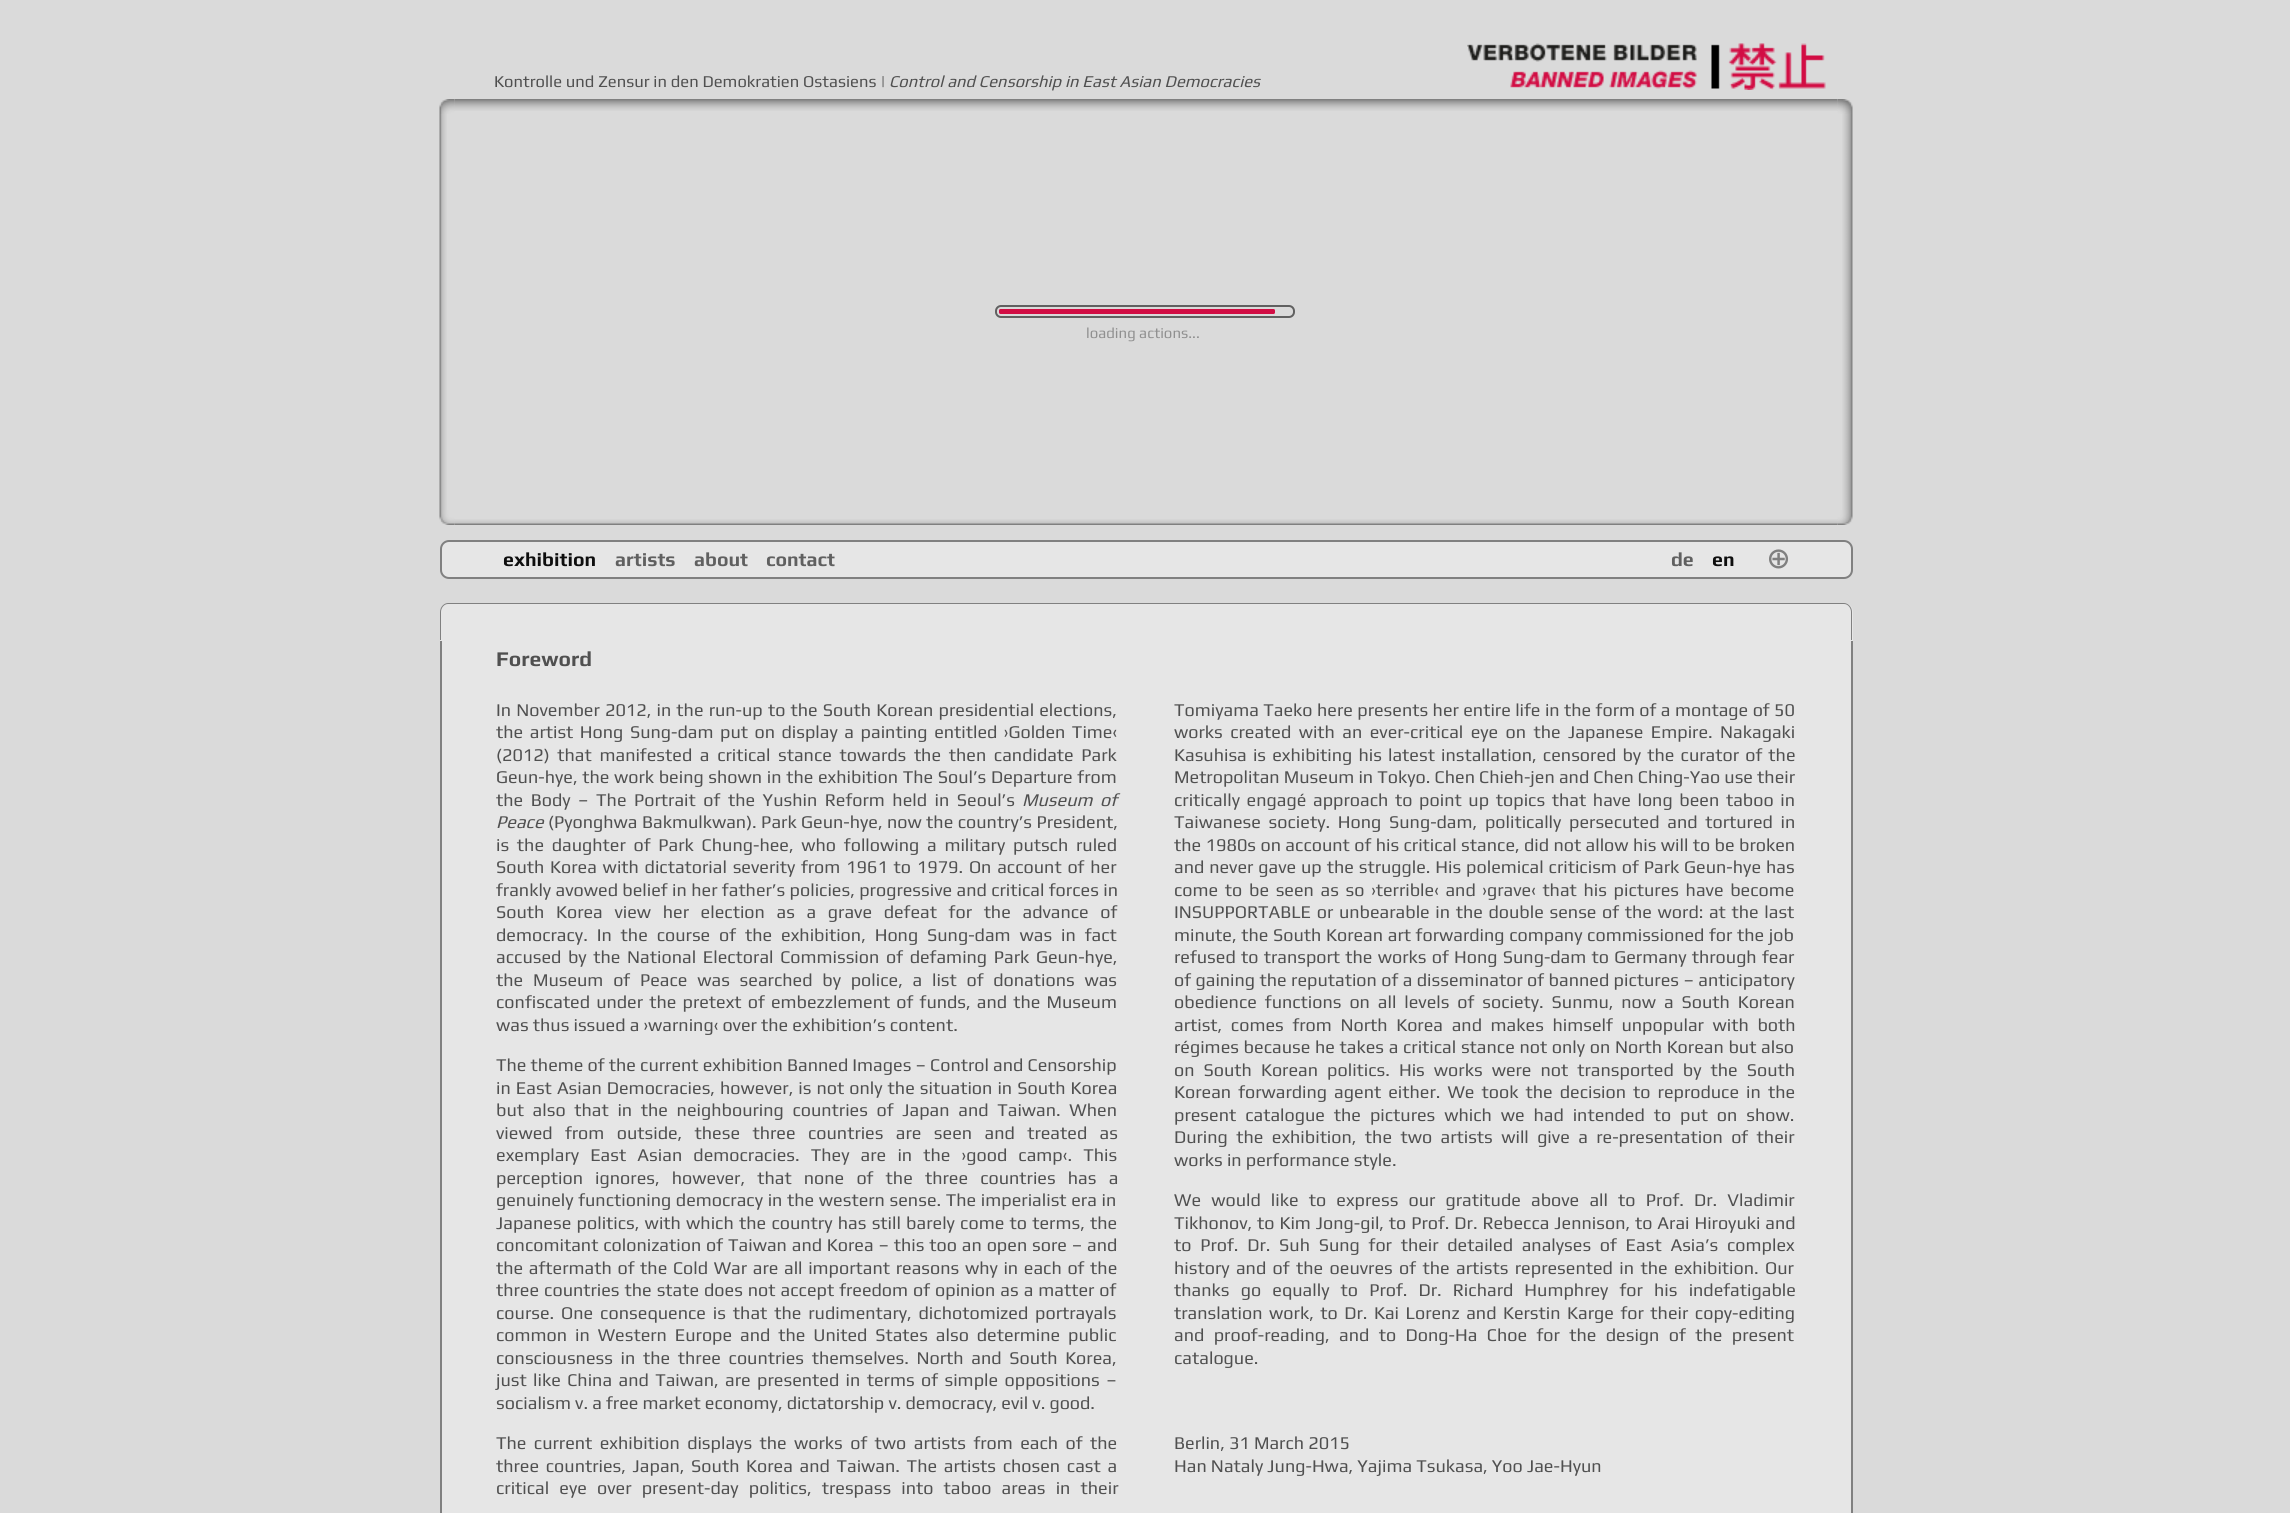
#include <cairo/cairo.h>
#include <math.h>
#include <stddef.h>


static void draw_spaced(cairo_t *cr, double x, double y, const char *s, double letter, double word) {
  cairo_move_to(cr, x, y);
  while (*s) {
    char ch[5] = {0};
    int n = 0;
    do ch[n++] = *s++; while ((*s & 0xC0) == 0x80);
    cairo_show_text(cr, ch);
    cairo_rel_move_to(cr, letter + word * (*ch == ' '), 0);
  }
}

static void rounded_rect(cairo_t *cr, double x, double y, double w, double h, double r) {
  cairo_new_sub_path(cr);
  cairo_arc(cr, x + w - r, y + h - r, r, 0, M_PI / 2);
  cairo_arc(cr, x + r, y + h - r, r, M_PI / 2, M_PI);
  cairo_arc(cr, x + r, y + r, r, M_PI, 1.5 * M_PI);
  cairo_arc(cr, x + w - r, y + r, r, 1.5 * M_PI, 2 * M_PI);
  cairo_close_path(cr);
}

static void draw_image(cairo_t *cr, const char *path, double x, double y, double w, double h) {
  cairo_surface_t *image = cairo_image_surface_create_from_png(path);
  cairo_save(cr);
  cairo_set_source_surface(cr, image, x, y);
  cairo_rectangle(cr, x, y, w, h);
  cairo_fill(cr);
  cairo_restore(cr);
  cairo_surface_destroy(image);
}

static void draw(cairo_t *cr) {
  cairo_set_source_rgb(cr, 218 / 255.0, 218 / 255.0, 218 / 255.0);
  cairo_paint(cr);
  draw_image(cr, "images/1.png", 1467, 43, 359, 47);
  draw_image(cr, "images/2.png", 439, 99, 16, 15);
  draw_image(cr, "images/4.png", 1837, 99, 16, 15);
  draw_image(cr, "images/3.png", 454, 99, 1384, 12);
  draw_image(cr, "images/5.png", 439, 114, 8, 396);
  rounded_rect(cr, 996, 306, 298, 11, 5);
  cairo_set_source_rgb(cr, 96 / 255.0, 96 / 255.0, 96 / 255.0);
  cairo_stroke(cr);
  cairo_set_source_rgb(cr, 210 / 255.0, 13 / 255.0, 68 / 255.0);
  rounded_rect(cr, 999, 309, 276, 5, 1.5);
  cairo_fill(cr);
  draw_image(cr, "images/6.png", 1842, 114, 11, 396);
  draw_image(cr, "images/7.png", 439, 510, 16, 15);
  draw_image(cr, "images/9.png", 1837, 510, 16, 15);
  draw_image(cr, "images/8.png", 454, 519, 1384, 6);
  cairo_set_source_rgb(cr, 230 / 255.0, 230 / 255.0, 230 / 255.0);
  rounded_rect(cr, 441, 541, 1411, 37, 8);
  cairo_fill_preserve(cr);
  cairo_set_source_rgb(cr, 128 / 255.0, 128 / 255.0, 128 / 255.0);
  cairo_stroke(cr);
  cairo_set_source_rgb(cr, 230 / 255.0, 230 / 255.0, 230 / 255.0);
  cairo_new_path(cr);
  cairo_move_to(cr, 449, 603);
  cairo_line_to(cr, 1844, 603);
  cairo_curve_to(cr, 1849, 603, 1853, 607, 1853, 612);
  cairo_line_to(cr, 1853, 641);
  cairo_line_to(cr, 440, 641);
  cairo_line_to(cr, 440, 612);
  cairo_curve_to(cr, 440, 607, 444, 603, 449, 603);
  cairo_close_path(cr);
  cairo_fill(cr);
  cairo_set_source_rgb(cr, 128 / 255.0, 128 / 255.0, 128 / 255.0);
  cairo_set_fill_rule(cr, CAIRO_FILL_RULE_EVEN_ODD);
  cairo_new_path(cr);
  cairo_move_to(cr, 448, 603);
  cairo_line_to(cr, 1844, 603);
  cairo_curve_to(cr, 1848, 603, 1852, 607, 1852, 612);
  cairo_line_to(cr, 1852, 640);
  cairo_line_to(cr, 440, 640);
  cairo_line_to(cr, 440, 612);
  cairo_curve_to(cr, 440, 607, 444, 603, 448, 603);
  cairo_close_path(cr);
  cairo_move_to(cr, 448, 604);
  cairo_line_to(cr, 1844, 604);
  cairo_curve_to(cr, 1848, 604, 1851, 608, 1851, 612);
  cairo_line_to(cr, 1851, 640);
  cairo_line_to(cr, 441, 640);
  cairo_line_to(cr, 441, 612);
  cairo_curve_to(cr, 441, 608, 444, 604, 448, 604);
  cairo_close_path(cr);
  cairo_fill(cr);
  cairo_set_source_rgb(cr, 230 / 255.0, 230 / 255.0, 230 / 255.0);
  cairo_rectangle(cr, 442, 641, 1409, 872);
  cairo_fill(cr);
  cairo_set_source_rgb(cr, 128 / 255.0, 128 / 255.0, 128 / 255.0);
  cairo_rectangle(cr, 1851, 641, 2, 872);
  cairo_fill(cr);
  cairo_rectangle(cr, 440, 641, 2, 872);
  cairo_fill(cr);
  cairo_select_font_face(cr, "Play", CAIRO_FONT_SLANT_NORMAL, CAIRO_FONT_WEIGHT_NORMAL);
  cairo_set_font_size(cr, 16.6);
  cairo_set_source_rgb(cr, 80 / 255.0, 80 / 255.0, 80 / 255.0);
  cairo_move_to(cr, 494, 87);
  cairo_show_text(cr, "Kontrolle und Zensur in den Demokratien Ostasiens |");
  cairo_select_font_face(cr, "Play", CAIRO_FONT_SLANT_ITALIC, CAIRO_FONT_WEIGHT_NORMAL);
  cairo_move_to(cr, 889, 87);
  cairo_show_text(cr, "Control and Censorship in East Asian Democracies");
  cairo_select_font_face(cr, "Play", CAIRO_FONT_SLANT_NORMAL, CAIRO_FONT_WEIGHT_NORMAL);
  cairo_set_font_size(cr, 15);
  cairo_set_source_rgb(cr, 144 / 255.0, 144 / 255.0, 144 / 255.0);
  cairo_move_to(cr, 1086, 338);
  cairo_show_text(cr, "loading actions...");
  cairo_select_font_face(cr, "Play", CAIRO_FONT_SLANT_NORMAL, CAIRO_FONT_WEIGHT_BOLD);
  cairo_set_font_size(cr, 19.5);
  cairo_set_source_rgb(cr, 14 / 255.0, 14 / 255.0, 14 / 255.0);
  cairo_move_to(cr, 503, 566);
  cairo_show_text(cr, "exhibition");
  cairo_set_source_rgb(cr, 96 / 255.0, 96 / 255.0, 96 / 255.0);
  cairo_move_to(cr, 615, 566);
  cairo_show_text(cr, "artists");
  cairo_move_to(cr, 694, 566);
  cairo_show_text(cr, "about");
  cairo_move_to(cr, 766, 566);
  cairo_show_text(cr, "contact");
  cairo_move_to(cr, 1671, 566);
  cairo_show_text(cr, "de");
  cairo_set_source_rgb(cr, 14 / 255.0, 14 / 255.0, 14 / 255.0);
  cairo_move_to(cr, 1712, 566);
  cairo_show_text(cr, "en");
  cairo_select_font_face(cr, "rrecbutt", CAIRO_FONT_SLANT_NORMAL, CAIRO_FONT_WEIGHT_NORMAL);
  cairo_set_source_rgb(cr, 128 / 255.0, 128 / 255.0, 128 / 255.0);
  cairo_move_to(cr, 1768, 567);
  cairo_show_text(cr, "+");
  cairo_select_font_face(cr, "Play", CAIRO_FONT_SLANT_NORMAL, CAIRO_FONT_WEIGHT_BOLD);
  cairo_set_font_size(cr, 21);
  cairo_set_source_rgb(cr, 80 / 255.0, 80 / 255.0, 80 / 255.0);
  cairo_move_to(cr, 496, 666);
  cairo_show_text(cr, "Foreword");
  cairo_select_font_face(cr, "Play", CAIRO_FONT_SLANT_NORMAL, CAIRO_FONT_WEIGHT_NORMAL);
  cairo_set_font_size(cr, 18);
  draw_spaced(cr, 496, 716, "In November 2012, in the run-up to the South Korean presidential elections,", 0, 1);
  draw_spaced(cr, 496, 738, "the artist Hong Sung-dam put on display a painting entitled ›Golden Time‹", 0, 2.4);
  draw_spaced(cr, 496, 761, "(2012) that manifested a critical stance towards the then candidate Park", 0, 3.5);
  draw_spaced(cr, 496, 783, "Geun-hye, the work being shown in the exhibition The Soul’s Departure from", 0, 0.5);
  draw_spaced(cr, 496, 806, "the Body – The Portrait of the Yushin Reform held in Seoul’s", 0, 3.4);
  cairo_select_font_face(cr, "Play", CAIRO_FONT_SLANT_ITALIC, CAIRO_FONT_WEIGHT_NORMAL);
  draw_spaced(cr, 1022, 806, "Museum of", 0, 3.4);
  cairo_move_to(cr, 496, 828);
  cairo_show_text(cr, "Peace");
  cairo_select_font_face(cr, "Play", CAIRO_FONT_SLANT_NORMAL, CAIRO_FONT_WEIGHT_NORMAL);
  draw_spaced(cr, 548, 828, "(Pyonghwa Bakmulkwan). Park Geun-hye, now the country’s President,", 0, 0.25);
  draw_spaced(cr, 496, 851, "is the daughter of Park Chung-hee, who following a military putsch ruled", 0, 3.6);
  draw_spaced(cr, 496, 873, "South Korea with dictatorial severity from 1961 to 1979. On account of her", 0, 1.6);
  draw_spaced(cr, 496, 896, "frankly avowed belief in her father’s policies, progressive and critical forces in", 0, 0.25);
  draw_spaced(cr, 496, 918, "South Korea view her election as a grave defeat for the advance of", 0, 7.5);
  draw_spaced(cr, 496, 941, "democracy. In the course of the exhibition, Hong Sung-dam was in fact", 0, 4.75);
  draw_spaced(cr, 496, 963, "accused by the National Electoral Commission of defaming Park Geun-hye,", 0, 2.5);
  draw_spaced(cr, 496, 986, "the Museum of Peace was searched by police, a list of donations was", 0, 5.6);
  draw_spaced(cr, 496, 1008, "confiscated under the pretext of embezzlement of funds, and the Museum", 0, 2);
  cairo_move_to(cr, 496, 1031);
  cairo_show_text(cr, "was thus issued a ›warning‹ over the exhibition’s content.");
  cairo_move_to(cr, 496, 1071);
  cairo_show_text(cr, "The theme of the current exhibition Banned Images – Control and Censorship");
  draw_spaced(cr, 496, 1094, "in East Asian Democracies, however, is not only the situation in South Korea", 0, 0.9);
  draw_spaced(cr, 496, 1116, "but also that in the neighbouring countries of Japan and Taiwan. When", 0, 4.5);
  draw_spaced(cr, 496, 1139, "viewed from outside, these three countries are seen and treated as", 0, 8.25);
  draw_spaced(cr, 496, 1161, "exemplary East Asian democracies. They are in the ›good camp‹. This", 0, 7);
  draw_spaced(cr, 496, 1184, "perception ignores, however, that none of the three countries has a", 0, 8);
  draw_spaced(cr, 496, 1206, "genuinely functioning democracy in the western sense. The imperialist era in", 0, 0.5);
  draw_spaced(cr, 496, 1229, "Japanese politics, with which the country has still barely come to terms, the", 0, 1.1);
  draw_spaced(cr, 496, 1251, "concomitant colonization of Taiwan and Korea – this too an open sore – and", 0, 0.7);
  draw_spaced(cr, 496, 1274, "the aftermath of the Cold War are all important reasons why in each of the", 0, 1.5);
  draw_spaced(cr, 496, 1296, "three countries the state does not accept freedom of opinion as a matter of", 0, 0.8);
  draw_spaced(cr, 496, 1319, "course. One consequence is that the rudimentary, dichotomized portrayals", 0, 2.75);
  draw_spaced(cr, 496, 1341, "common in Western Europe and the United States also determine public", 0, 3.75);
  draw_spaced(cr, 496, 1364, "consciousness in the three countries themselves. North and South Korea,", 0, 3.5);
  draw_spaced(cr, 496, 1386, "just like China and Taiwan, are presented in terms of simple oppositions –", 0, 2.25);
  cairo_move_to(cr, 496, 1409);
  cairo_show_text(cr, "socialism v. a free market economy, dictatorship v. democracy, evil v. good.");
  draw_spaced(cr, 496, 1449, "The current exhibition displays the works of two artists from each of the", 0, 3.25);
  draw_spaced(cr, 496, 1472, "three countries, Japan, South Korea and Taiwan. The artists chosen cast a", 0, 2.5);
  draw_spaced(cr, 496, 1494, "critical eye over present-day politics, trespass into taboo areas in their", 0, 6);
  draw_spaced(cr, 1174, 716, "Tomiyama Taeko here presents her entire life in the form of a montage of 50", 0, 0.25);
  draw_spaced(cr, 1174, 738, "works created with an ever-critical eye on the Japanese Empire. Nakagaki", 0, 3.25);
  draw_spaced(cr, 1174, 761, "Kasuhisa is exhibiting his latest installation, censored by the curator of the", 0, 2);
  cairo_move_to(cr, 1174, 783);
  cairo_show_text(cr, "Metropolitan Museum in Tokyo. Chen Chieh-jen and Chen Ching-Yao use their");
  draw_spaced(cr, 1174, 806, "critically engagé approach to point up topics that have long been taboo in", 0, 2.5);
  draw_spaced(cr, 1174, 828, "Taiwanese society. Hong Sung-dam, politically persecuted and tortured in", 0, 3.6);
  draw_spaced(cr, 1174, 851, "the 1980s on account of his critical stance, did not allow his will to be broken", 0, 0.25);
  draw_spaced(cr, 1174, 873, "and never gave up the struggle. His polemical criticism of Park Geun-hye has", 0, 0.75);
  draw_spaced(cr, 1174, 896, "come to be seen as so ›terrible‹ and ›grave‹ that his pictures have become", 0, 2.5);
  draw_spaced(cr, 1174, 918, "INSUPPORTABLE or unbearable in the double sense of the word: at the last", 0, 1.5);
  draw_spaced(cr, 1174, 941, "minute, the South Korean art forwarding company commissioned for the job", 0, 0.5);
  draw_spaced(cr, 1174, 963, "refused to transport the works of Hong Sung-dam to Germany through fear", 0, 1.1);
  draw_spaced(cr, 1174, 986, "of gaining the reputation of a disseminator of banned pictures – anticipatory", 0, 0.25);
  draw_spaced(cr, 1174, 1008, "obedience functions on all levels of society. Sunmu, now a South Korean", 0, 3.75);
  draw_spaced(cr, 1174, 1031, "artist, comes from North Korea and makes himself unpopular with both", 0, 4.5);
  draw_spaced(cr, 1174, 1053, "régimes because he takes a critical stance not only on North Korean but also", 0, 0.5);
  draw_spaced(cr, 1174, 1076, "on South Korean politics. His works were not transported by the South", 0, 4.9);
  draw_spaced(cr, 1174, 1098, "Korean forwarding agent either. We took the decision to reproduce in the", 0, 2.9);
  draw_spaced(cr, 1174, 1121, "present catalogue the pictures which we had intended to put on show.", 0, 4.75);
  draw_spaced(cr, 1174, 1143, "During the exhibition, the two artists will give a re-presentation of their", 0, 4.25);
  cairo_move_to(cr, 1174, 1166);
  cairo_show_text(cr, "works in performance style.");
  draw_spaced(cr, 1174, 1206, "We would like to express our gratitude above all to Prof. Dr. Vladimir", 0, 6);
  draw_spaced(cr, 1174, 1229, "Tikhonov, to Kim Jong-gil, to Prof. Dr. Rebecca Jennison, to Arai Hiroyuki and", 0, 0.75);
  draw_spaced(cr, 1174, 1251, "to Prof. Dr. Suh Sung for their detailed analyses of East Asia’s complex", 0, 4.6);
  draw_spaced(cr, 1174, 1274, "history and of the oeuvres of the artists represented in the exhibition. Our", 0, 2.25);
  draw_spaced(cr, 1174, 1296, "thanks go equally to Prof. Dr. Richard Humphrey for his indefatigable", 0, 7);
  draw_spaced(cr, 1174, 1319, "translation work, to Dr. Kai Lorenz and Kerstin Karge for their copy-editing", 0, 2.4);
  draw_spaced(cr, 1174, 1341, "and proof-reading, and to Dong-Ha Choe for the design of the present", 0, 5.25);
  cairo_move_to(cr, 1174, 1364);
  cairo_show_text(cr, "catalogue.");
  cairo_move_to(cr, 1174, 1449);
  cairo_show_text(cr, "Berlin, 31 March 2015");
  cairo_move_to(cr, 1174, 1472);
  cairo_show_text(cr, "Han Nataly Jung-Hwa, Yajima Tsukasa, Yoo Jae-Hyun");
}

int main(void) {
  cairo_surface_t *surface = cairo_image_surface_create(CAIRO_FORMAT_RGB24, 2290, 1513);
  cairo_t *cr = cairo_create(surface);
  cairo_font_options_t *options = cairo_font_options_create();
  cairo_font_options_set_hint_metrics(options, CAIRO_HINT_METRICS_OFF);
  cairo_font_options_set_hint_style(options, CAIRO_HINT_STYLE_NONE);
  cairo_set_font_options(cr, options);
  cairo_set_miter_limit(cr, 4);
  draw(cr);
  cairo_surface_write_to_png(surface, "out.png");
  cairo_font_options_destroy(options);
  cairo_destroy(cr);
  cairo_surface_destroy(surface);
  return 0;
}
